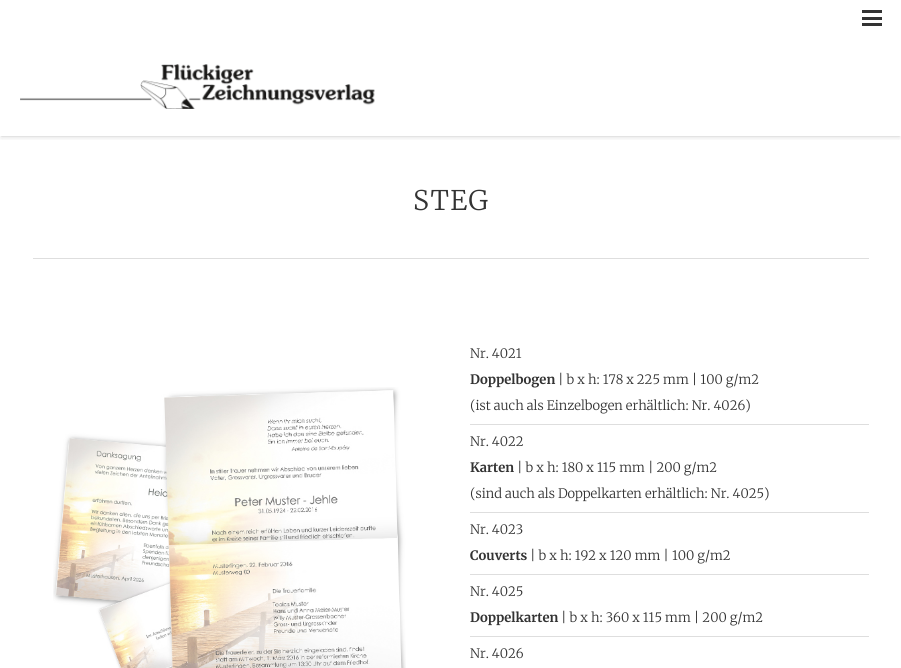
#include <cairo/cairo.h>
#include <math.h>
#include <stddef.h>


static void draw_spaced(cairo_t *cr, double x, double y, const char *s, double letter, double word) {
  cairo_move_to(cr, x, y);
  while (*s) {
    char ch[5] = {0};
    int n = 0;
    do ch[n++] = *s++; while ((*s & 0xC0) == 0x80);
    cairo_show_text(cr, ch);
    cairo_rel_move_to(cr, letter + word * (*ch == ' '), 0);
  }
}

static void rounded_rect(cairo_t *cr, double x, double y, double w, double h, double r) {
  cairo_new_sub_path(cr);
  cairo_arc(cr, x + w - r, y + h - r, r, 0, M_PI / 2);
  cairo_arc(cr, x + r, y + h - r, r, M_PI / 2, M_PI);
  cairo_arc(cr, x + r, y + r, r, M_PI, 1.5 * M_PI);
  cairo_arc(cr, x + w - r, y + r, r, 1.5 * M_PI, 2 * M_PI);
  cairo_close_path(cr);
}

static void draw_shadow(cairo_t *cr, double x, double y, double w, double h, double r, double blur, double alpha) {
  cairo_push_group_with_content(cr, CAIRO_CONTENT_ALPHA);
  cairo_set_operator(cr, CAIRO_OPERATOR_SOURCE);
  for (int i = 15; i >= -15 && fmin(w, h) + blur * i / 3 > 0; i -= 2) {
    double e = blur * i / 6;
    cairo_set_source_rgba(cr, 0, 0, 0, alpha * erfc((i - 1) / 8.5) / 2);
    rounded_rect(cr, x - e, y - e, w + 2 * e, h + 2 * e, fmax(0, fmin(r + e + blur * .6, fmin(w, h) / 2 + e)));
    cairo_fill(cr);
  }
  cairo_pattern_t *soft = cairo_pop_group(cr);
  cairo_mask(cr, soft);
  cairo_pattern_destroy(soft);
}

static void draw_image(cairo_t *cr, const char *path, double x, double y, double w, double h) {
  cairo_surface_t *image = cairo_image_surface_create_from_png(path);
  cairo_save(cr);
  cairo_set_source_surface(cr, image, x, y);
  cairo_rectangle(cr, x, y, w, h);
  cairo_fill(cr);
  cairo_restore(cr);
  cairo_surface_destroy(image);
}

static void draw(cairo_t *cr) {
  cairo_set_source_rgb(cr, 1, 1, 1);
  cairo_paint(cr);
  cairo_set_source_rgb(cr, 51 / 255.0, 51 / 255.0, 51 / 255.0);
  cairo_rectangle(cr, 862, 17, 20, 3);
  cairo_fill(cr);
  cairo_rectangle(cr, 862, 10, 20, 3);
  cairo_fill(cr);
  cairo_rectangle(cr, 862, 23, 20, 3);
  cairo_fill(cr);
  cairo_save(cr);
  cairo_rectangle(cr, 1, 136, 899, 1);
  cairo_clip(cr);
  cairo_set_source_rgb(cr, 0, 0, 0);
  draw_shadow(cr, 1, 39, 899, 98, 0, 0.5, 0.05);
  cairo_restore(cr);
  cairo_save(cr);
  cairo_rectangle(cr, 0, 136, 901, 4);
  cairo_clip(cr);
  cairo_set_source_rgb(cr, 0, 0, 0);
  draw_shadow(cr, 1, 40, 899, 98, 0, 2.5, 0.1);
  cairo_restore(cr);
  draw_image(cr, "images/1.png", 20, 64, 355, 45);
  cairo_set_source_rgb(cr, 222 / 255.0, 222 / 255.0, 222 / 255.0);
  cairo_rectangle(cr, 33, 258, 836, 1);
  cairo_fill(cr);
  draw_image(cr, "images/2.png", 53, 387, 353, 281);
  cairo_rectangle(cr, 470, 424, 399, 1);
  cairo_fill(cr);
  cairo_rectangle(cr, 470, 512, 399, 1);
  cairo_fill(cr);
  cairo_rectangle(cr, 470, 574, 399, 1);
  cairo_fill(cr);
  cairo_rectangle(cr, 470, 636, 399, 1);
  cairo_fill(cr);
  cairo_select_font_face(cr, "Merriweather Light", CAIRO_FONT_SLANT_NORMAL, CAIRO_FONT_WEIGHT_NORMAL);
  cairo_set_font_size(cr, 27);
  cairo_set_source_rgb(cr, 51 / 255.0, 51 / 255.0, 51 / 255.0);
  draw_spaced(cr, 413, 210, "STEG", 1.5, 0);
  cairo_set_font_size(cr, 13);
  cairo_move_to(cr, 470, 358);
  cairo_show_text(cr, "Nr. 4021");
  cairo_select_font_face(cr, "Merriweather", CAIRO_FONT_SLANT_NORMAL, CAIRO_FONT_WEIGHT_BOLD);
  cairo_move_to(cr, 470, 384);
  cairo_show_text(cr, "Doppelbogen");
  cairo_select_font_face(cr, "Merriweather Light", CAIRO_FONT_SLANT_NORMAL, CAIRO_FONT_WEIGHT_NORMAL);
  cairo_move_to(cr, 558, 384);
  cairo_show_text(cr, "| b x h: 178 x 225 mm | 100 g/m2");
  cairo_move_to(cr, 470, 410);
  cairo_show_text(cr, "(ist auch als Einzelbogen erhältlich: Nr. 4026)");
  cairo_move_to(cr, 470, 446);
  cairo_show_text(cr, "Nr. 4022");
  cairo_select_font_face(cr, "Merriweather", CAIRO_FONT_SLANT_NORMAL, CAIRO_FONT_WEIGHT_BOLD);
  cairo_move_to(cr, 470, 472);
  cairo_show_text(cr, "Karten");
  cairo_select_font_face(cr, "Merriweather Light", CAIRO_FONT_SLANT_NORMAL, CAIRO_FONT_WEIGHT_NORMAL);
  cairo_move_to(cr, 517, 472);
  cairo_show_text(cr, "| b x h: 180 x 115 mm | 200 g/m2");
  cairo_move_to(cr, 470, 498);
  cairo_show_text(cr, "(sind auch als Doppelkarten erhältlich: Nr. 4025)");
  cairo_move_to(cr, 470, 534);
  cairo_show_text(cr, "Nr. 4023");
  cairo_select_font_face(cr, "Merriweather", CAIRO_FONT_SLANT_NORMAL, CAIRO_FONT_WEIGHT_BOLD);
  cairo_move_to(cr, 470, 560);
  cairo_show_text(cr, "Couverts");
  cairo_select_font_face(cr, "Merriweather Light", CAIRO_FONT_SLANT_NORMAL, CAIRO_FONT_WEIGHT_NORMAL);
  cairo_move_to(cr, 530, 560);
  cairo_show_text(cr, "| b x h: 192 x 120 mm | 100 g/m2");
  cairo_move_to(cr, 470, 596);
  cairo_show_text(cr, "Nr. 4025");
  cairo_select_font_face(cr, "Merriweather", CAIRO_FONT_SLANT_NORMAL, CAIRO_FONT_WEIGHT_BOLD);
  cairo_move_to(cr, 470, 622);
  cairo_show_text(cr, "Doppelkarten");
  cairo_select_font_face(cr, "Merriweather Light", CAIRO_FONT_SLANT_NORMAL, CAIRO_FONT_WEIGHT_NORMAL);
  cairo_move_to(cr, 561, 622);
  cairo_show_text(cr, "| b x h: 360 x 115 mm | 200 g/m2");
  cairo_move_to(cr, 470, 658);
  cairo_show_text(cr, "Nr. 4026");
}

int main(void) {
  cairo_surface_t *surface = cairo_image_surface_create(CAIRO_FORMAT_RGB24, 901, 668);
  cairo_t *cr = cairo_create(surface);
  cairo_font_options_t *options = cairo_font_options_create();
  cairo_font_options_set_hint_metrics(options, CAIRO_HINT_METRICS_OFF);
  cairo_font_options_set_hint_style(options, CAIRO_HINT_STYLE_NONE);
  cairo_set_font_options(cr, options);
  cairo_set_miter_limit(cr, 4);
  draw(cr);
  cairo_surface_write_to_png(surface, "out.png");
  cairo_font_options_destroy(options);
  cairo_destroy(cr);
  cairo_surface_destroy(surface);
  return 0;
}
